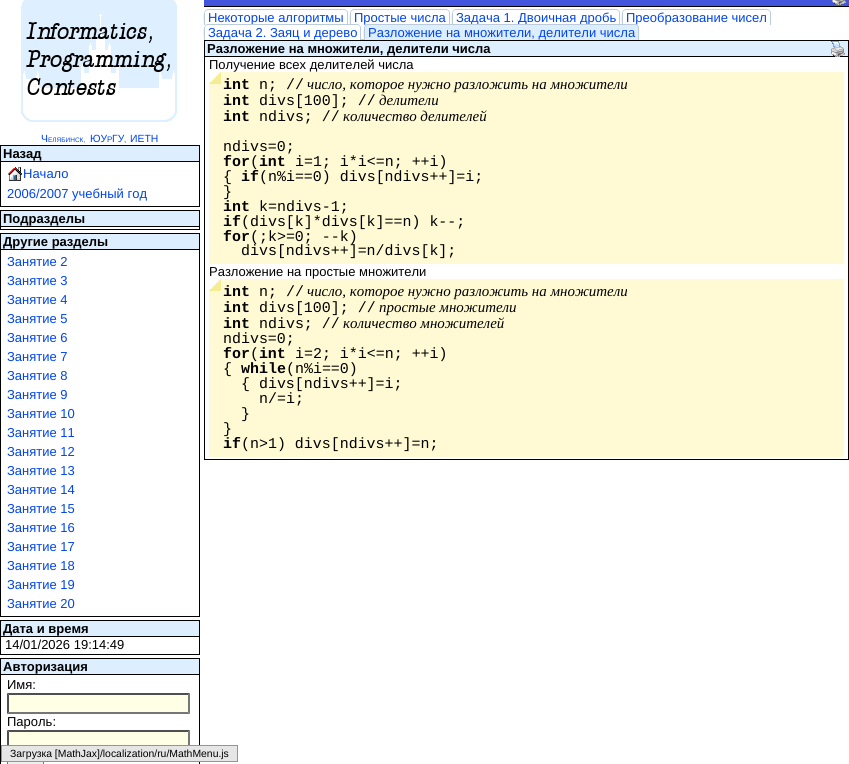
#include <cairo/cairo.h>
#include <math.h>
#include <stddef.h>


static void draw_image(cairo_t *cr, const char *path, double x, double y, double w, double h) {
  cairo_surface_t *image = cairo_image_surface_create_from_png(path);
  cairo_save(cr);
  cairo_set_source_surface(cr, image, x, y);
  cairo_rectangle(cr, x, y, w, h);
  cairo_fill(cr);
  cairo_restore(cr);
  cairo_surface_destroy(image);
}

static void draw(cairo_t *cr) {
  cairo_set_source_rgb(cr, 1, 1, 1);
  cairo_paint(cr);
  draw_image(cr, "images/1.png", 21, 0, 156, 122);
  cairo_rectangle(cr, 0.5, 145.5, 199, 61);
  cairo_set_source_rgb(cr, 0, 0, 0);
  cairo_set_line_width(cr, 1);
  cairo_stroke(cr);
  cairo_set_source_rgb(cr, 221 / 255.0, 238 / 255.0, 1);
  cairo_rectangle(cr, 1, 146, 198, 15);
  cairo_fill(cr);
  cairo_set_source_rgb(cr, 0, 0, 0);
  cairo_rectangle(cr, 1, 161, 198, 1);
  cairo_fill(cr);
  draw_image(cr, "images/2.png", 8, 167, 14, 14);
  cairo_rectangle(cr, 0.5, 210.5, 199, 19);
  cairo_stroke(cr);
  cairo_set_source_rgb(cr, 221 / 255.0, 238 / 255.0, 1);
  cairo_rectangle(cr, 1, 211, 198, 15);
  cairo_fill(cr);
  cairo_set_source_rgb(cr, 0, 0, 0);
  cairo_rectangle(cr, 1, 226, 198, 1);
  cairo_fill(cr);
  cairo_rectangle(cr, 0.5, 233.5, 199, 383);
  cairo_stroke(cr);
  cairo_set_source_rgb(cr, 221 / 255.0, 238 / 255.0, 1);
  cairo_rectangle(cr, 1, 234, 198, 15);
  cairo_fill(cr);
  cairo_set_source_rgb(cr, 0, 0, 0);
  cairo_rectangle(cr, 1, 249, 198, 1);
  cairo_fill(cr);
  cairo_rectangle(cr, 0.5, 620.5, 199, 34);
  cairo_stroke(cr);
  cairo_set_source_rgb(cr, 221 / 255.0, 238 / 255.0, 1);
  cairo_rectangle(cr, 1, 621, 198, 15);
  cairo_fill(cr);
  cairo_set_source_rgb(cr, 0, 0, 0);
  cairo_rectangle(cr, 1, 636, 198, 1);
  cairo_fill(cr);
  cairo_rectangle(cr, 0.5, 658.5, 199, 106);
  cairo_stroke(cr);
  cairo_set_source_rgb(cr, 221 / 255.0, 238 / 255.0, 1);
  cairo_rectangle(cr, 1, 659, 198, 15);
  cairo_fill(cr);
  cairo_set_source_rgb(cr, 0, 0, 0);
  cairo_rectangle(cr, 1, 674, 198, 1);
  cairo_fill(cr);
  cairo_set_source_rgb(cr, 1, 1, 230 / 255.0);
  cairo_rectangle(cr, 7, 693, 183, 21);
  cairo_fill(cr);
  cairo_set_source_rgb(cr, 79 / 255.0, 79 / 255.0, 79 / 255.0);
  cairo_new_path(cr);
  cairo_move_to(cr, 7, 693);
  cairo_line_to(cr, 190, 693);
  cairo_line_to(cr, 188, 695);
  cairo_line_to(cr, 9, 695);
  cairo_close_path(cr);
  cairo_fill(cr);
  cairo_set_source_rgb(cr, 118 / 255.0, 118 / 255.0, 118 / 255.0);
  cairo_new_path(cr);
  cairo_move_to(cr, 190, 693);
  cairo_line_to(cr, 190, 714);
  cairo_line_to(cr, 188, 712);
  cairo_line_to(cr, 188, 695);
  cairo_close_path(cr);
  cairo_fill(cr);
  cairo_new_path(cr);
  cairo_move_to(cr, 190, 714);
  cairo_line_to(cr, 7, 714);
  cairo_line_to(cr, 9, 712);
  cairo_line_to(cr, 188, 712);
  cairo_close_path(cr);
  cairo_fill(cr);
  cairo_set_source_rgb(cr, 79 / 255.0, 79 / 255.0, 79 / 255.0);
  cairo_new_path(cr);
  cairo_move_to(cr, 7, 714);
  cairo_line_to(cr, 7, 693);
  cairo_line_to(cr, 9, 695);
  cairo_line_to(cr, 9, 712);
  cairo_close_path(cr);
  cairo_fill(cr);
  cairo_set_source_rgb(cr, 1, 1, 230 / 255.0);
  cairo_rectangle(cr, 7, 730, 183, 15);
  cairo_fill(cr);
  cairo_set_source_rgb(cr, 79 / 255.0, 79 / 255.0, 79 / 255.0);
  cairo_new_path(cr);
  cairo_move_to(cr, 7, 730);
  cairo_line_to(cr, 190, 730);
  cairo_line_to(cr, 188, 732);
  cairo_line_to(cr, 9, 732);
  cairo_close_path(cr);
  cairo_fill(cr);
  cairo_set_source_rgb(cr, 118 / 255.0, 118 / 255.0, 118 / 255.0);
  cairo_new_path(cr);
  cairo_move_to(cr, 190, 730);
  cairo_line_to(cr, 190, 751);
  cairo_line_to(cr, 188, 749);
  cairo_line_to(cr, 188, 732);
  cairo_close_path(cr);
  cairo_fill(cr);
  cairo_set_source_rgb(cr, 79 / 255.0, 79 / 255.0, 79 / 255.0);
  cairo_new_path(cr);
  cairo_move_to(cr, 7, 751);
  cairo_line_to(cr, 7, 730);
  cairo_line_to(cr, 9, 732);
  cairo_line_to(cr, 9, 749);
  cairo_close_path(cr);
  cairo_fill(cr);
  cairo_set_source_rgb(cr, 239 / 255.0, 239 / 255.0, 239 / 255.0);
  cairo_rectangle(cr, 8, 762, 35, 2);
  cairo_fill(cr);
  cairo_rectangle(cr, 7.5, 752.5, 36, 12);
  cairo_set_source_rgb(cr, 118 / 255.0, 118 / 255.0, 118 / 255.0);
  cairo_stroke(cr);
  cairo_set_source_rgb(cr, 68 / 255.0, 85 / 255.0, 221 / 255.0);
  cairo_rectangle(cr, 204, 0, 645, 6);
  cairo_fill(cr);
  cairo_set_source_rgb(cr, 0, 0, 0);
  cairo_rectangle(cr, 204, 6, 645, 1);
  cairo_fill(cr);
  draw_image(cr, "images/3.png", 832, 0, 14, 5);
  cairo_set_source_rgb(cr, 187 / 255.0, 204 / 255.0, 221 / 255.0);
  cairo_set_fill_rule(cr, CAIRO_FILL_RULE_EVEN_ODD);
  cairo_new_path(cr);
  cairo_move_to(cr, 208, 9);
  cairo_line_to(cr, 344, 9);
  cairo_curve_to(cr, 346, 9, 348, 11, 348, 13);
  cairo_line_to(cr, 348, 25);
  cairo_line_to(cr, 204, 25);
  cairo_curve_to(cr, 204, 21, 202, 9, 208, 9);
  cairo_close_path(cr);
  cairo_move_to(cr, 208, 10);
  cairo_line_to(cr, 344, 10);
  cairo_curve_to(cr, 346, 10, 347, 11, 347, 13);
  cairo_line_to(cr, 347, 25);
  cairo_line_to(cr, 205, 25);
  cairo_line_to(cr, 205, 13);
  cairo_curve_to(cr, 205, 11, 206, 10, 208, 10);
  cairo_close_path(cr);
  cairo_fill(cr);
  cairo_new_path(cr);
  cairo_move_to(cr, 354, 9);
  cairo_line_to(cr, 446, 9);
  cairo_curve_to(cr, 448, 9, 450, 11, 450, 13);
  cairo_line_to(cr, 450, 25);
  cairo_line_to(cr, 350, 25);
  cairo_curve_to(cr, 350, 21, 348, 9, 354, 9);
  cairo_close_path(cr);
  cairo_move_to(cr, 354, 10);
  cairo_line_to(cr, 446, 10);
  cairo_curve_to(cr, 448, 10, 449, 11, 449, 13);
  cairo_line_to(cr, 449, 25);
  cairo_line_to(cr, 351, 25);
  cairo_line_to(cr, 351, 13);
  cairo_curve_to(cr, 351, 11, 352, 10, 354, 10);
  cairo_close_path(cr);
  cairo_fill(cr);
  cairo_new_path(cr);
  cairo_move_to(cr, 456, 9);
  cairo_line_to(cr, 616, 9);
  cairo_curve_to(cr, 618, 9, 620, 11, 620, 13);
  cairo_line_to(cr, 620, 25);
  cairo_line_to(cr, 452, 25);
  cairo_curve_to(cr, 452, 21, 450, 9, 456, 9);
  cairo_close_path(cr);
  cairo_move_to(cr, 456, 10);
  cairo_line_to(cr, 616, 10);
  cairo_curve_to(cr, 618, 10, 619, 11, 619, 13);
  cairo_line_to(cr, 619, 25);
  cairo_line_to(cr, 453, 25);
  cairo_line_to(cr, 453, 13);
  cairo_curve_to(cr, 453, 11, 454, 10, 456, 10);
  cairo_close_path(cr);
  cairo_fill(cr);
  cairo_new_path(cr);
  cairo_move_to(cr, 626, 9);
  cairo_line_to(cr, 767, 9);
  cairo_curve_to(cr, 769, 9, 771, 11, 771, 13);
  cairo_line_to(cr, 771, 25);
  cairo_line_to(cr, 622, 25);
  cairo_curve_to(cr, 622, 21, 620, 9, 626, 9);
  cairo_close_path(cr);
  cairo_move_to(cr, 626, 10);
  cairo_line_to(cr, 767, 10);
  cairo_curve_to(cr, 769, 10, 770, 11, 770, 13);
  cairo_line_to(cr, 770, 25);
  cairo_line_to(cr, 623, 25);
  cairo_line_to(cr, 623, 13);
  cairo_curve_to(cr, 623, 11, 624, 10, 626, 10);
  cairo_close_path(cr);
  cairo_fill(cr);
  cairo_rectangle(cr, 361, 39, 3, 1);
  cairo_fill(cr);
  cairo_rectangle(cr, 204.5, 40.5, 644, 419);
  cairo_set_source_rgb(cr, 0, 0, 0);
  cairo_stroke(cr);
  cairo_set_source_rgb(cr, 221 / 255.0, 238 / 255.0, 1);
  cairo_rectangle(cr, 205, 41, 643, 15);
  cairo_fill(cr);
  cairo_set_source_rgb(cr, 0, 0, 0);
  cairo_rectangle(cr, 205, 56, 643, 1);
  cairo_fill(cr);
  draw_image(cr, "images/4.png", 831, 41, 14, 16);
  cairo_set_source_rgb(cr, 1, 250 / 255.0, 212 / 255.0);
  cairo_rectangle(cr, 209, 72, 635, 192);
  cairo_fill(cr);
  draw_image(cr, "images/5.png", 209, 72, 12, 12);
  cairo_rectangle(cr, 209, 279, 635, 178);
  cairo_fill(cr);
  draw_image(cr, "images/5.png", 209, 279, 12, 12);
  cairo_set_source_rgb(cr, 230 / 255.0, 230 / 255.0, 230 / 255.0);
  cairo_rectangle(cr, 1.5, 745.5, 236, 16);
  cairo_fill_preserve(cr);
  cairo_set_source_rgb(cr, 149 / 255.0, 149 / 255.0, 149 / 255.0);
  cairo_stroke(cr);
  cairo_select_font_face(cr, "Liberation Sans", CAIRO_FONT_SLANT_NORMAL, CAIRO_FONT_WEIGHT_NORMAL);
  cairo_set_font_size(cr, 10.4);
  cairo_set_source_rgb(cr, 0, 68 / 255.0, 238 / 255.0);
  cairo_move_to(cr, 41, 142);
  cairo_show_text(cr, "Ч");
  cairo_set_font_size(cr, 6.5);
  cairo_move_to(cr, 48, 142);
  cairo_show_text(cr, "ЕЛЯБИНСК,");
  cairo_set_font_size(cr, 10.4);
  cairo_move_to(cr, 90, 142);
  cairo_show_text(cr, "ЮУ");
  cairo_set_font_size(cr, 8);
  cairo_move_to(cr, 107, 142);
  cairo_show_text(cr, "Р");
  cairo_set_font_size(cr, 10.4);
  cairo_move_to(cr, 112, 142);
  cairo_show_text(cr, "ГУ");
  cairo_move_to(cr, 130, 142);
  cairo_show_text(cr, "ИЕТН");
  cairo_set_font_size(cr, 8);
  cairo_move_to(cr, 124, 142);
  cairo_show_text(cr, ",");
  cairo_select_font_face(cr, "Liberation Sans", CAIRO_FONT_SLANT_NORMAL, CAIRO_FONT_WEIGHT_BOLD);
  cairo_set_font_size(cr, 13);
  cairo_set_source_rgb(cr, 0, 0, 0);
  cairo_move_to(cr, 3, 158);
  cairo_show_text(cr, "Назад");
  cairo_select_font_face(cr, "Liberation Sans", CAIRO_FONT_SLANT_NORMAL, CAIRO_FONT_WEIGHT_NORMAL);
  cairo_set_source_rgb(cr, 0, 68 / 255.0, 238 / 255.0);
  cairo_move_to(cr, 23, 178);
  cairo_show_text(cr, "Начало");
  cairo_move_to(cr, 7, 198);
  cairo_show_text(cr, "2006/2007 учебный год");
  cairo_select_font_face(cr, "Liberation Sans", CAIRO_FONT_SLANT_NORMAL, CAIRO_FONT_WEIGHT_BOLD);
  cairo_set_source_rgb(cr, 0, 0, 0);
  cairo_move_to(cr, 3, 223);
  cairo_show_text(cr, "Подразделы");
  cairo_move_to(cr, 3, 246);
  cairo_show_text(cr, "Другие разделы");
  cairo_select_font_face(cr, "Liberation Sans", CAIRO_FONT_SLANT_NORMAL, CAIRO_FONT_WEIGHT_NORMAL);
  cairo_set_source_rgb(cr, 0, 68 / 255.0, 238 / 255.0);
  cairo_move_to(cr, 7, 266);
  cairo_show_text(cr, "Занятие 2");
  cairo_move_to(cr, 7, 285);
  cairo_show_text(cr, "Занятие 3");
  cairo_move_to(cr, 7, 304);
  cairo_show_text(cr, "Занятие 4");
  cairo_move_to(cr, 7, 323);
  cairo_show_text(cr, "Занятие 5");
  cairo_move_to(cr, 7, 342);
  cairo_show_text(cr, "Занятие 6");
  cairo_move_to(cr, 7, 361);
  cairo_show_text(cr, "Занятие 7");
  cairo_move_to(cr, 7, 380);
  cairo_show_text(cr, "Занятие 8");
  cairo_move_to(cr, 7, 399);
  cairo_show_text(cr, "Занятие 9");
  cairo_move_to(cr, 7, 418);
  cairo_show_text(cr, "Занятие 10");
  cairo_move_to(cr, 7, 437);
  cairo_show_text(cr, "Занятие 11");
  cairo_move_to(cr, 7, 456);
  cairo_show_text(cr, "Занятие 12");
  cairo_move_to(cr, 7, 475);
  cairo_show_text(cr, "Занятие 13");
  cairo_move_to(cr, 7, 494);
  cairo_show_text(cr, "Занятие 14");
  cairo_move_to(cr, 7, 513);
  cairo_show_text(cr, "Занятие 15");
  cairo_move_to(cr, 7, 532);
  cairo_show_text(cr, "Занятие 16");
  cairo_move_to(cr, 7, 551);
  cairo_show_text(cr, "Занятие 17");
  cairo_move_to(cr, 7, 570);
  cairo_show_text(cr, "Занятие 18");
  cairo_move_to(cr, 7, 589);
  cairo_show_text(cr, "Занятие 19");
  cairo_move_to(cr, 7, 608);
  cairo_show_text(cr, "Занятие 20");
  cairo_select_font_face(cr, "Liberation Sans", CAIRO_FONT_SLANT_NORMAL, CAIRO_FONT_WEIGHT_BOLD);
  cairo_set_source_rgb(cr, 0, 0, 0);
  cairo_move_to(cr, 3, 633);
  cairo_show_text(cr, "Дата и время");
  cairo_select_font_face(cr, "Liberation Sans", CAIRO_FONT_SLANT_NORMAL, CAIRO_FONT_WEIGHT_NORMAL);
  cairo_move_to(cr, 5, 649);
  cairo_show_text(cr, "14/01/2026 19:14:49");
  cairo_select_font_face(cr, "Liberation Sans", CAIRO_FONT_SLANT_NORMAL, CAIRO_FONT_WEIGHT_BOLD);
  cairo_move_to(cr, 3, 671);
  cairo_show_text(cr, "Авторизация");
  cairo_select_font_face(cr, "Liberation Sans", CAIRO_FONT_SLANT_NORMAL, CAIRO_FONT_WEIGHT_NORMAL);
  cairo_move_to(cr, 7, 689);
  cairo_show_text(cr, "Имя:");
  cairo_move_to(cr, 7, 726);
  cairo_show_text(cr, "Пароль:");
  cairo_set_source_rgb(cr, 0, 68 / 255.0, 238 / 255.0);
  cairo_move_to(cr, 208, 22);
  cairo_show_text(cr, "Некоторые алгоритмы");
  cairo_move_to(cr, 354, 22);
  cairo_show_text(cr, "Простые числа");
  cairo_move_to(cr, 456, 22);
  cairo_show_text(cr, "Задача 1. Двоичная дробь");
  cairo_move_to(cr, 626, 22);
  cairo_show_text(cr, "Преобразование чисел");
  cairo_set_source_rgb(cr, 187 / 255.0, 204 / 255.0, 221 / 255.0);
  cairo_new_path(cr);
  cairo_move_to(cr, 208, 24);
  cairo_line_to(cr, 357, 24);
  cairo_curve_to(cr, 359, 24, 361, 26, 361, 28);
  cairo_line_to(cr, 361, 40);
  cairo_line_to(cr, 204, 40);
  cairo_curve_to(cr, 204, 36, 202, 24, 208, 24);
  cairo_close_path(cr);
  cairo_move_to(cr, 208, 25);
  cairo_line_to(cr, 357, 25);
  cairo_curve_to(cr, 359, 25, 360, 26, 360, 28);
  cairo_line_to(cr, 360, 40);
  cairo_line_to(cr, 205, 40);
  cairo_line_to(cr, 205, 28);
  cairo_curve_to(cr, 205, 26, 206, 25, 208, 25);
  cairo_close_path(cr);
  cairo_fill(cr);
  cairo_set_source_rgb(cr, 0, 68 / 255.0, 238 / 255.0);
  cairo_move_to(cr, 208, 37);
  cairo_show_text(cr, "Задача 2. Заяц и дерево");
  cairo_set_source_rgb(cr, 221 / 255.0, 238 / 255.0, 1);
  cairo_new_path(cr);
  cairo_move_to(cr, 368, 24);
  cairo_line_to(cr, 635, 24);
  cairo_curve_to(cr, 637, 24, 639, 26, 639, 28);
  cairo_line_to(cr, 639, 40);
  cairo_line_to(cr, 364, 40);
  cairo_line_to(cr, 364, 28);
  cairo_curve_to(cr, 364, 26, 366, 24, 368, 24);
  cairo_close_path(cr);
  cairo_fill(cr);
  cairo_set_source_rgb(cr, 187 / 255.0, 204 / 255.0, 221 / 255.0);
  cairo_new_path(cr);
  cairo_move_to(cr, 368, 24);
  cairo_line_to(cr, 635, 24);
  cairo_curve_to(cr, 637, 24, 639, 26, 639, 28);
  cairo_line_to(cr, 639, 40);
  cairo_line_to(cr, 364, 40);
  cairo_curve_to(cr, 364, 36, 362, 24, 368, 24);
  cairo_close_path(cr);
  cairo_move_to(cr, 368, 25);
  cairo_line_to(cr, 635, 25);
  cairo_curve_to(cr, 637, 25, 638, 26, 638, 28);
  cairo_line_to(cr, 638, 40);
  cairo_line_to(cr, 365, 40);
  cairo_line_to(cr, 365, 28);
  cairo_curve_to(cr, 365, 26, 366, 25, 368, 25);
  cairo_close_path(cr);
  cairo_fill(cr);
  cairo_set_source_rgb(cr, 0, 68 / 255.0, 238 / 255.0);
  cairo_move_to(cr, 368, 37);
  cairo_show_text(cr, "Разложение на множители, делители числа");
  cairo_select_font_face(cr, "Liberation Sans", CAIRO_FONT_SLANT_NORMAL, CAIRO_FONT_WEIGHT_BOLD);
  cairo_set_source_rgb(cr, 0, 0, 0);
  cairo_move_to(cr, 207, 53);
  cairo_show_text(cr, "Разложение на множители, делители числа");
  cairo_select_font_face(cr, "Liberation Sans", CAIRO_FONT_SLANT_NORMAL, CAIRO_FONT_WEIGHT_NORMAL);
  cairo_move_to(cr, 209, 69);
  cairo_show_text(cr, "Получение всех делителей числа");
  cairo_select_font_face(cr, "Liberation Mono", CAIRO_FONT_SLANT_NORMAL, CAIRO_FONT_WEIGHT_BOLD);
  cairo_set_font_size(cr, 14.95);
  cairo_move_to(cr, 223, 89);
  cairo_show_text(cr, "int");
  cairo_select_font_face(cr, "Liberation Mono", CAIRO_FONT_SLANT_NORMAL, CAIRO_FONT_WEIGHT_NORMAL);
  cairo_move_to(cr, 259, 89);
  cairo_show_text(cr, "n; //");
  cairo_select_font_face(cr, "Liberation Serif", CAIRO_FONT_SLANT_ITALIC, CAIRO_FONT_WEIGHT_NORMAL);
  cairo_move_to(cr, 307, 89);
  cairo_show_text(cr, "число, которое нужно разложить на множители");
  cairo_select_font_face(cr, "Liberation Mono", CAIRO_FONT_SLANT_NORMAL, CAIRO_FONT_WEIGHT_BOLD);
  cairo_move_to(cr, 223, 105);
  cairo_show_text(cr, "int");
  cairo_select_font_face(cr, "Liberation Mono", CAIRO_FONT_SLANT_NORMAL, CAIRO_FONT_WEIGHT_NORMAL);
  cairo_move_to(cr, 259, 105);
  cairo_show_text(cr, "divs[100]; //");
  cairo_select_font_face(cr, "Liberation Serif", CAIRO_FONT_SLANT_ITALIC, CAIRO_FONT_WEIGHT_NORMAL);
  cairo_move_to(cr, 379, 105);
  cairo_show_text(cr, "делители");
  cairo_select_font_face(cr, "Liberation Mono", CAIRO_FONT_SLANT_NORMAL, CAIRO_FONT_WEIGHT_BOLD);
  cairo_move_to(cr, 223, 121);
  cairo_show_text(cr, "int");
  cairo_select_font_face(cr, "Liberation Mono", CAIRO_FONT_SLANT_NORMAL, CAIRO_FONT_WEIGHT_NORMAL);
  cairo_move_to(cr, 259, 121);
  cairo_show_text(cr, "ndivs; //");
  cairo_select_font_face(cr, "Liberation Serif", CAIRO_FONT_SLANT_ITALIC, CAIRO_FONT_WEIGHT_NORMAL);
  cairo_move_to(cr, 343, 121);
  cairo_show_text(cr, "количество делителей");
  cairo_select_font_face(cr, "Liberation Mono", CAIRO_FONT_SLANT_NORMAL, CAIRO_FONT_WEIGHT_NORMAL);
  cairo_move_to(cr, 223, 151);
  cairo_show_text(cr, "ndivs=0;");
  cairo_select_font_face(cr, "Liberation Mono", CAIRO_FONT_SLANT_NORMAL, CAIRO_FONT_WEIGHT_BOLD);
  cairo_move_to(cr, 223, 166);
  cairo_show_text(cr, "for int");
  cairo_select_font_face(cr, "Liberation Mono", CAIRO_FONT_SLANT_NORMAL, CAIRO_FONT_WEIGHT_NORMAL);
  cairo_move_to(cr, 250, 166);
  cairo_show_text(cr, "(");
  cairo_move_to(cr, 295, 166);
  cairo_show_text(cr, "i=1; i*i<=n; ++i)");
  cairo_move_to(cr, 223, 181);
  cairo_show_text(cr, "{");
  cairo_select_font_face(cr, "Liberation Mono", CAIRO_FONT_SLANT_NORMAL, CAIRO_FONT_WEIGHT_BOLD);
  cairo_move_to(cr, 241, 181);
  cairo_show_text(cr, "if");
  cairo_select_font_face(cr, "Liberation Mono", CAIRO_FONT_SLANT_NORMAL, CAIRO_FONT_WEIGHT_NORMAL);
  cairo_move_to(cr, 259, 181);
  cairo_show_text(cr, "(n%i==0) divs[ndivs++]=i;");
  cairo_move_to(cr, 223, 196);
  cairo_show_text(cr, "}");
  cairo_select_font_face(cr, "Liberation Mono", CAIRO_FONT_SLANT_NORMAL, CAIRO_FONT_WEIGHT_BOLD);
  cairo_move_to(cr, 223, 211);
  cairo_show_text(cr, "int");
  cairo_select_font_face(cr, "Liberation Mono", CAIRO_FONT_SLANT_NORMAL, CAIRO_FONT_WEIGHT_NORMAL);
  cairo_move_to(cr, 259, 211);
  cairo_show_text(cr, "k=ndivs-1;");
  cairo_select_font_face(cr, "Liberation Mono", CAIRO_FONT_SLANT_NORMAL, CAIRO_FONT_WEIGHT_BOLD);
  cairo_move_to(cr, 223, 226);
  cairo_show_text(cr, "if");
  cairo_select_font_face(cr, "Liberation Mono", CAIRO_FONT_SLANT_NORMAL, CAIRO_FONT_WEIGHT_NORMAL);
  cairo_move_to(cr, 241, 226);
  cairo_show_text(cr, "(divs[k]*divs[k]==n) k--;");
  cairo_select_font_face(cr, "Liberation Mono", CAIRO_FONT_SLANT_NORMAL, CAIRO_FONT_WEIGHT_BOLD);
  cairo_move_to(cr, 223, 241);
  cairo_show_text(cr, "for");
  cairo_select_font_face(cr, "Liberation Mono", CAIRO_FONT_SLANT_NORMAL, CAIRO_FONT_WEIGHT_NORMAL);
  cairo_move_to(cr, 250, 241);
  cairo_show_text(cr, "(;k>=0; --k)");
  cairo_move_to(cr, 241, 255);
  cairo_show_text(cr, "divs[ndivs++]=n/divs[k];");
  cairo_select_font_face(cr, "Liberation Sans", CAIRO_FONT_SLANT_NORMAL, CAIRO_FONT_WEIGHT_NORMAL);
  cairo_set_font_size(cr, 13);
  cairo_move_to(cr, 209, 276);
  cairo_show_text(cr, "Разложение на простые множители");
  cairo_select_font_face(cr, "Liberation Mono", CAIRO_FONT_SLANT_NORMAL, CAIRO_FONT_WEIGHT_BOLD);
  cairo_set_font_size(cr, 14.95);
  cairo_move_to(cr, 223, 296);
  cairo_show_text(cr, "int");
  cairo_select_font_face(cr, "Liberation Mono", CAIRO_FONT_SLANT_NORMAL, CAIRO_FONT_WEIGHT_NORMAL);
  cairo_move_to(cr, 259, 296);
  cairo_show_text(cr, "n; //");
  cairo_select_font_face(cr, "Liberation Serif", CAIRO_FONT_SLANT_ITALIC, CAIRO_FONT_WEIGHT_NORMAL);
  cairo_move_to(cr, 307, 296);
  cairo_show_text(cr, "число, которое нужно разложить на множители");
  cairo_select_font_face(cr, "Liberation Mono", CAIRO_FONT_SLANT_NORMAL, CAIRO_FONT_WEIGHT_BOLD);
  cairo_move_to(cr, 223, 312);
  cairo_show_text(cr, "int");
  cairo_select_font_face(cr, "Liberation Mono", CAIRO_FONT_SLANT_NORMAL, CAIRO_FONT_WEIGHT_NORMAL);
  cairo_move_to(cr, 259, 312);
  cairo_show_text(cr, "divs[100]; //");
  cairo_select_font_face(cr, "Liberation Serif", CAIRO_FONT_SLANT_ITALIC, CAIRO_FONT_WEIGHT_NORMAL);
  cairo_move_to(cr, 379, 312);
  cairo_show_text(cr, "простые множители");
  cairo_select_font_face(cr, "Liberation Mono", CAIRO_FONT_SLANT_NORMAL, CAIRO_FONT_WEIGHT_BOLD);
  cairo_move_to(cr, 223, 328);
  cairo_show_text(cr, "int");
  cairo_select_font_face(cr, "Liberation Mono", CAIRO_FONT_SLANT_NORMAL, CAIRO_FONT_WEIGHT_NORMAL);
  cairo_move_to(cr, 259, 328);
  cairo_show_text(cr, "ndivs; //");
  cairo_select_font_face(cr, "Liberation Serif", CAIRO_FONT_SLANT_ITALIC, CAIRO_FONT_WEIGHT_NORMAL);
  cairo_move_to(cr, 343, 328);
  cairo_show_text(cr, "количество множителей");
  cairo_select_font_face(cr, "Liberation Mono", CAIRO_FONT_SLANT_NORMAL, CAIRO_FONT_WEIGHT_NORMAL);
  cairo_move_to(cr, 223, 343);
  cairo_show_text(cr, "ndivs=0;");
  cairo_select_font_face(cr, "Liberation Mono", CAIRO_FONT_SLANT_NORMAL, CAIRO_FONT_WEIGHT_BOLD);
  cairo_move_to(cr, 223, 358);
  cairo_show_text(cr, "for int");
  cairo_select_font_face(cr, "Liberation Mono", CAIRO_FONT_SLANT_NORMAL, CAIRO_FONT_WEIGHT_NORMAL);
  cairo_move_to(cr, 250, 358);
  cairo_show_text(cr, "(");
  cairo_move_to(cr, 295, 358);
  cairo_show_text(cr, "i=2; i*i<=n; ++i)");
  cairo_move_to(cr, 223, 373);
  cairo_show_text(cr, "{");
  cairo_select_font_face(cr, "Liberation Mono", CAIRO_FONT_SLANT_NORMAL, CAIRO_FONT_WEIGHT_BOLD);
  cairo_move_to(cr, 241, 373);
  cairo_show_text(cr, "while");
  cairo_select_font_face(cr, "Liberation Mono", CAIRO_FONT_SLANT_NORMAL, CAIRO_FONT_WEIGHT_NORMAL);
  cairo_move_to(cr, 286, 373);
  cairo_show_text(cr, "(n%i==0)");
  cairo_move_to(cr, 241, 388);
  cairo_show_text(cr, "{ divs[ndivs++]=i;");
  cairo_move_to(cr, 259, 403);
  cairo_show_text(cr, "n/=i;");
  cairo_move_to(cr, 241, 418);
  cairo_show_text(cr, "}");
  cairo_move_to(cr, 223, 433);
  cairo_show_text(cr, "}");
  cairo_select_font_face(cr, "Liberation Mono", CAIRO_FONT_SLANT_NORMAL, CAIRO_FONT_WEIGHT_BOLD);
  cairo_move_to(cr, 223, 448);
  cairo_show_text(cr, "if");
  cairo_select_font_face(cr, "Liberation Mono", CAIRO_FONT_SLANT_NORMAL, CAIRO_FONT_WEIGHT_NORMAL);
  cairo_move_to(cr, 241, 448);
  cairo_show_text(cr, "(n>1) divs[ndivs++]=n;");
  cairo_select_font_face(cr, "Liberation Sans", CAIRO_FONT_SLANT_NORMAL, CAIRO_FONT_WEIGHT_NORMAL);
  cairo_set_font_size(cr, 10.4);
  cairo_move_to(cr, 10, 757);
  cairo_show_text(cr, "Загрузка [MathJax]/localization/ru/MathMenu.js");
}

int main(void) {
  cairo_surface_t *surface = cairo_image_surface_create(CAIRO_FORMAT_RGB24, 849, 764);
  cairo_t *cr = cairo_create(surface);
  cairo_font_options_t *options = cairo_font_options_create();
  cairo_font_options_set_hint_metrics(options, CAIRO_HINT_METRICS_OFF);
  cairo_font_options_set_hint_style(options, CAIRO_HINT_STYLE_NONE);
  cairo_set_font_options(cr, options);
  cairo_set_miter_limit(cr, 4);
  draw(cr);
  cairo_surface_write_to_png(surface, "out.png");
  cairo_font_options_destroy(options);
  cairo_destroy(cr);
  cairo_surface_destroy(surface);
  return 0;
}
